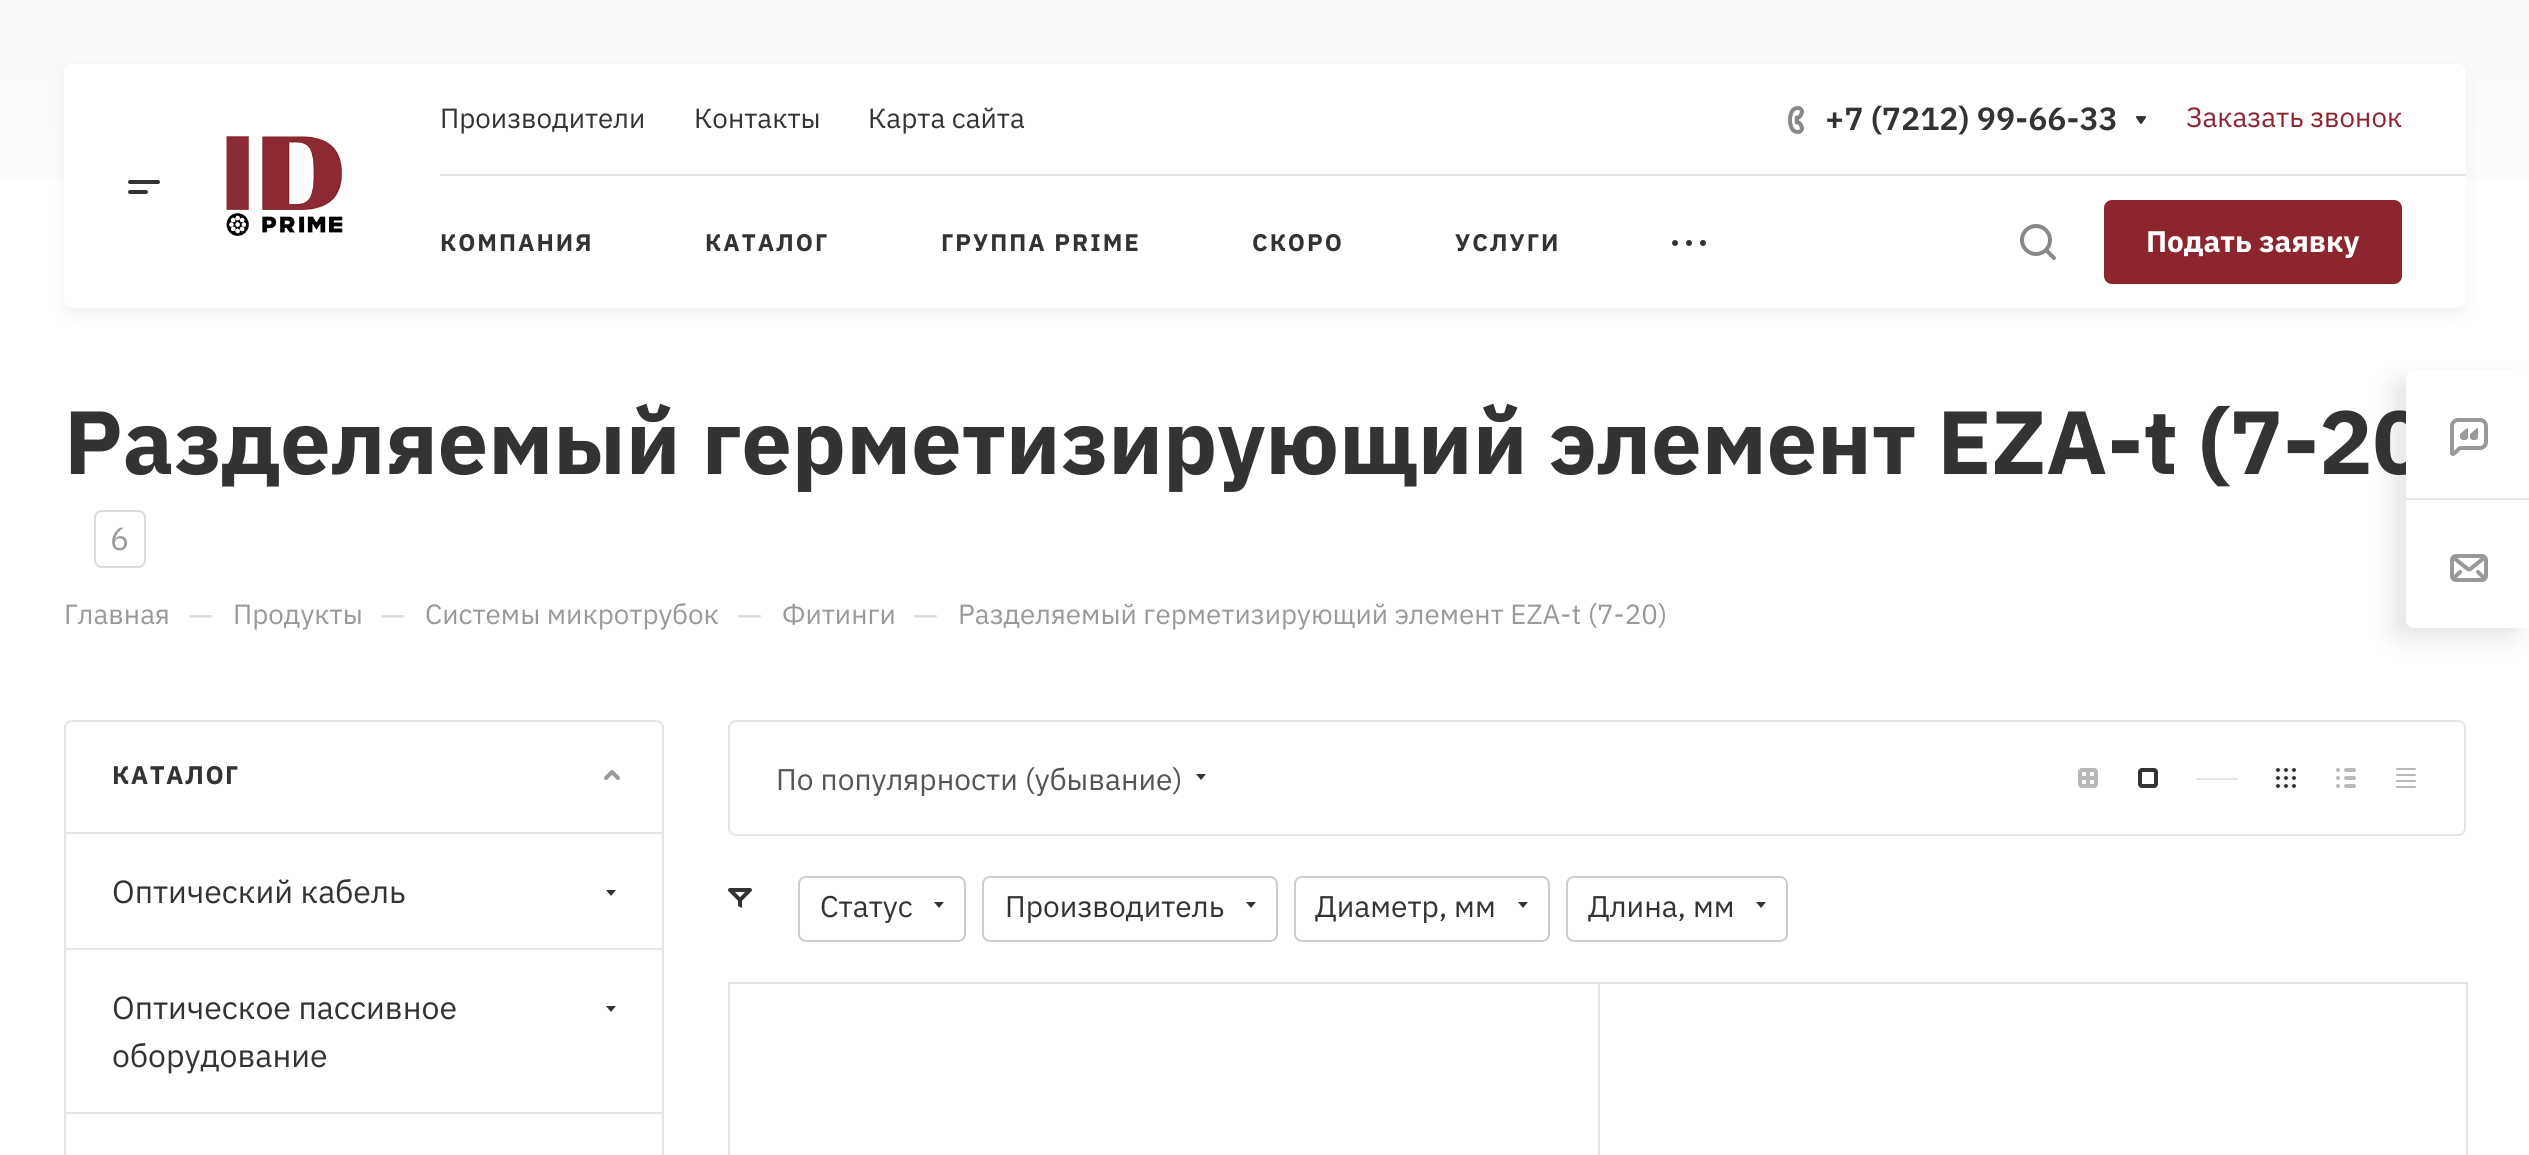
#include <cairo/cairo.h>
#include <math.h>
#include <stddef.h>


static void draw_spaced(cairo_t *cr, double x, double y, const char *s, double letter, double word) {
  cairo_move_to(cr, x, y);
  while (*s) {
    char ch[5] = {0};
    int n = 0;
    do ch[n++] = *s++; while ((*s & 0xC0) == 0x80);
    cairo_show_text(cr, ch);
    cairo_rel_move_to(cr, letter + word * (*ch == ' '), 0);
  }
}

static void rounded_rect(cairo_t *cr, double x, double y, double w, double h, double r) {
  cairo_new_sub_path(cr);
  cairo_arc(cr, x + w - r, y + h - r, r, 0, M_PI / 2);
  cairo_arc(cr, x + r, y + h - r, r, M_PI / 2, M_PI);
  cairo_arc(cr, x + r, y + r, r, M_PI, 1.5 * M_PI);
  cairo_arc(cr, x + w - r, y + r, r, 1.5 * M_PI, 2 * M_PI);
  cairo_close_path(cr);
}

static void draw_shadow(cairo_t *cr, double x, double y, double w, double h, double r, double blur, double alpha) {
  cairo_push_group_with_content(cr, CAIRO_CONTENT_ALPHA);
  cairo_set_operator(cr, CAIRO_OPERATOR_SOURCE);
  for (int i = 15; i >= -15 && fmin(w, h) + blur * i / 3 > 0; i -= 2) {
    double e = blur * i / 6;
    cairo_set_source_rgba(cr, 0, 0, 0, alpha * erfc((i - 1) / 8.5) / 2);
    rounded_rect(cr, x - e, y - e, w + 2 * e, h + 2 * e, fmax(0, fmin(r + e + blur * .6, fmin(w, h) / 2 + e)));
    cairo_fill(cr);
  }
  cairo_pattern_t *soft = cairo_pop_group(cr);
  cairo_mask(cr, soft);
  cairo_pattern_destroy(soft);
}

static void draw_image(cairo_t *cr, const char *path, double x, double y, double w, double h) {
  cairo_surface_t *image = cairo_image_surface_create_from_png(path);
  cairo_save(cr);
  cairo_set_source_surface(cr, image, x, y);
  cairo_rectangle(cr, x, y, w, h);
  cairo_fill(cr);
  cairo_restore(cr);
  cairo_surface_destroy(image);
}

static void draw(cairo_t *cr) {
  cairo_pattern_t *gradient;
  cairo_set_source_rgb(cr, 1, 1, 1);
  cairo_paint(cr);
  gradient = cairo_pattern_create_linear(1265, 0, 1265, 308);
  cairo_pattern_add_color_stop_rgba(gradient, 0, 249 / 255.0, 249 / 255.0, 249 / 255.0, 1);
  cairo_pattern_add_color_stop_rgba(gradient, 1, 1, 1, 1, 1);
  cairo_set_source(cr, gradient);
  cairo_pattern_destroy(gradient);
  cairo_rectangle(cr, 0, 0, 2529, 180);
  cairo_fill(cr);
  cairo_set_source_rgb(cr, 0, 0, 0);
  draw_shadow(cr, 64, 70, 2402, 244, 8, 7, 0.05);
  cairo_set_source_rgb(cr, 1, 1, 1);
  rounded_rect(cr, 64, 64, 2402, 244, 8);
  cairo_fill(cr);
  draw_image(cr, "images/1.png", 128, 180, 32, 14);
  draw_image(cr, "images/2.png", 226, 136, 117, 100);
  cairo_set_source_rgb(cr, 229 / 255.0, 229 / 255.0, 229 / 255.0);
  cairo_rectangle(cr, 440, 174, 2026, 2);
  cairo_fill(cr);
  draw_image(cr, "images/3.png", 1788, 106, 16, 28);
  draw_image(cr, "images/4.png", 2136, 116, 11, 8);
  draw_image(cr, "images/5.png", 1672, 240, 34, 6);
  draw_image(cr, "images/6.png", 2020, 224, 36, 36);
  cairo_set_source_rgb(cr, 140 / 255.0, 37 / 255.0, 46 / 255.0);
  rounded_rect(cr, 2105, 201, 296, 82, 7);
  cairo_fill_preserve(cr);
  cairo_stroke(cr);
  rounded_rect(cr, 95, 511, 50, 56, 7);
  cairo_set_source_rgb(cr, 219 / 255.0, 219 / 255.0, 219 / 255.0);
  cairo_stroke(cr);
  cairo_rectangle(cr, 65, 833, 598, 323);
  cairo_set_source_rgb(cr, 229 / 255.0, 229 / 255.0, 229 / 255.0);
  cairo_stroke(cr);
  cairo_new_path(cr);
  cairo_move_to(cr, 72, 721);
  cairo_line_to(cr, 656, 721);
  cairo_curve_to(cr, 660, 721, 663, 724, 663, 728);
  cairo_line_to(cr, 663, 833);
  cairo_line_to(cr, 65, 833);
  cairo_line_to(cr, 65, 728);
  cairo_curve_to(cr, 65, 724, 68, 721, 72, 721);
  cairo_close_path(cr);
  cairo_stroke(cr);
  cairo_new_path(cr);
  cairo_move_to(cr, 606, 778);
  cairo_line_to(cr, 612, 772);
  cairo_line_to(cr, 618, 778);
  cairo_set_source_rgb(cr, 153 / 255.0, 153 / 255.0, 153 / 255.0);
  cairo_set_line_width(cr, 4);
  cairo_set_line_cap(cr, CAIRO_LINE_CAP_ROUND);
  cairo_set_line_join(cr, CAIRO_LINE_JOIN_ROUND);
  cairo_stroke(cr);
  cairo_set_source_rgb(cr, 51 / 255.0, 51 / 255.0, 51 / 255.0);
  cairo_set_fill_rule(cr, CAIRO_FILL_RULE_EVEN_ODD);
  cairo_new_path(cr);
  cairo_move_to(cr, 606, 890);
  cairo_line_to(cr, 616, 890);
  cairo_line_to(cr, 611, 896);
  cairo_close_path(cr);
  cairo_fill(cr);
  cairo_set_source_rgb(cr, 229 / 255.0, 229 / 255.0, 229 / 255.0);
  cairo_rectangle(cr, 66, 948, 596, 2);
  cairo_fill(cr);
  cairo_set_source_rgb(cr, 51 / 255.0, 51 / 255.0, 51 / 255.0);
  cairo_new_path(cr);
  cairo_move_to(cr, 606, 1006);
  cairo_line_to(cr, 616, 1006);
  cairo_line_to(cr, 611, 1012);
  cairo_close_path(cr);
  cairo_fill(cr);
  cairo_set_source_rgb(cr, 229 / 255.0, 229 / 255.0, 229 / 255.0);
  cairo_rectangle(cr, 66, 1112, 596, 2);
  cairo_fill(cr);
  rounded_rect(cr, 729, 721, 1736, 114, 7);
  cairo_set_line_width(cr, 2);
  cairo_set_line_cap(cr, CAIRO_LINE_CAP_BUTT);
  cairo_set_line_join(cr, CAIRO_LINE_JOIN_MITER);
  cairo_stroke(cr);
  cairo_set_source_rgb(cr, 51 / 255.0, 51 / 255.0, 51 / 255.0);
  cairo_new_path(cr);
  cairo_move_to(cr, 1196, 774);
  cairo_line_to(cr, 1206, 774);
  cairo_line_to(cr, 1201, 780);
  cairo_close_path(cr);
  cairo_fill(cr);
  draw_image(cr, "images/7.png", 2078, 768, 20, 20);
  draw_image(cr, "images/8.png", 2138, 768, 20, 20);
  cairo_set_source_rgb(cr, 229 / 255.0, 229 / 255.0, 229 / 255.0);
  cairo_rectangle(cr, 2196, 778, 42, 2);
  cairo_fill(cr);
  draw_image(cr, "images/9.png", 2276, 768, 20, 20);
  draw_image(cr, "images/10.png", 2336, 768, 20, 20);
  draw_image(cr, "images/11.png", 2396, 768, 20, 20);
  draw_image(cr, "images/12.png", 728, 888, 24, 20);
  rounded_rect(cr, 799, 877, 166, 64, 7);
  cairo_set_source_rgb(cr, 204 / 255.0, 204 / 255.0, 204 / 255.0);
  cairo_stroke(cr);
  cairo_set_source_rgb(cr, 51 / 255.0, 51 / 255.0, 51 / 255.0);
  cairo_new_path(cr);
  cairo_move_to(cr, 934, 902);
  cairo_line_to(cr, 944, 902);
  cairo_line_to(cr, 939, 908);
  cairo_close_path(cr);
  cairo_fill(cr);
  rounded_rect(cr, 983, 877, 294, 64, 7);
  cairo_set_source_rgb(cr, 204 / 255.0, 204 / 255.0, 204 / 255.0);
  cairo_stroke(cr);
  cairo_set_source_rgb(cr, 51 / 255.0, 51 / 255.0, 51 / 255.0);
  cairo_new_path(cr);
  cairo_move_to(cr, 1246, 902);
  cairo_line_to(cr, 1256, 902);
  cairo_line_to(cr, 1251, 908);
  cairo_close_path(cr);
  cairo_fill(cr);
  rounded_rect(cr, 1295, 877, 254, 64, 7);
  cairo_set_source_rgb(cr, 204 / 255.0, 204 / 255.0, 204 / 255.0);
  cairo_stroke(cr);
  cairo_set_source_rgb(cr, 51 / 255.0, 51 / 255.0, 51 / 255.0);
  cairo_new_path(cr);
  cairo_move_to(cr, 1518, 902);
  cairo_line_to(cr, 1528, 902);
  cairo_line_to(cr, 1523, 908);
  cairo_close_path(cr);
  cairo_fill(cr);
  rounded_rect(cr, 1567, 877, 220, 64, 7);
  cairo_set_source_rgb(cr, 204 / 255.0, 204 / 255.0, 204 / 255.0);
  cairo_stroke(cr);
  cairo_set_source_rgb(cr, 51 / 255.0, 51 / 255.0, 51 / 255.0);
  cairo_new_path(cr);
  cairo_move_to(cr, 1756, 902);
  cairo_line_to(cr, 1766, 902);
  cairo_line_to(cr, 1761, 908);
  cairo_close_path(cr);
  cairo_fill(cr);
  cairo_rectangle(cr, 729, 983, 870, 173);
  cairo_set_source_rgb(cr, 229 / 255.0, 229 / 255.0, 229 / 255.0);
  cairo_stroke(cr);
  cairo_rectangle(cr, 1599, 983, 868, 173);
  cairo_stroke(cr);
  cairo_set_source_rgb(cr, 0, 0, 0);
  draw_shadow(cr, 2392, 380, 126, 258, 8, 11, 0.1);
  cairo_select_font_face(cr, "IBM Plex Sans", CAIRO_FONT_SLANT_NORMAL, CAIRO_FONT_WEIGHT_NORMAL);
  cairo_set_font_size(cr, 27.75);
  cairo_set_source_rgb(cr, 51 / 255.0, 51 / 255.0, 51 / 255.0);
  cairo_move_to(cr, 440, 128);
  cairo_show_text(cr, "Производители");
  cairo_move_to(cr, 694, 128);
  cairo_show_text(cr, "Контакты");
  cairo_move_to(cr, 868, 128);
  cairo_show_text(cr, "Карта сайта");
  cairo_select_font_face(cr, "IBM Plex Sans SemiBold", CAIRO_FONT_SLANT_NORMAL, CAIRO_FONT_WEIGHT_NORMAL);
  cairo_set_font_size(cr, 32);
  cairo_move_to(cr, 1825, 130);
  cairo_show_text(cr, "+7 (7212) 99-66-33");
  cairo_select_font_face(cr, "IBM Plex Sans", CAIRO_FONT_SLANT_NORMAL, CAIRO_FONT_WEIGHT_NORMAL);
  cairo_set_font_size(cr, 27.75);
  cairo_set_source_rgb(cr, 140 / 255.0, 37 / 255.0, 46 / 255.0);
  cairo_move_to(cr, 2186, 127);
  cairo_show_text(cr, "Заказать звонок");
  cairo_select_font_face(cr, "IBM Plex Sans", CAIRO_FONT_SLANT_NORMAL, CAIRO_FONT_WEIGHT_BOLD);
  cairo_set_font_size(cr, 24);
  cairo_set_source_rgb(cr, 51 / 255.0, 51 / 255.0, 51 / 255.0);
  draw_spaced(cr, 440, 251, "КОМПАНИЯ", 2, 0);
  draw_spaced(cr, 705, 251, "КАТАЛОГ", 2, 0);
  draw_spaced(cr, 941, 251, "ГРУППА PRIME", 2, 0);
  draw_spaced(cr, 1252, 251, "СКОРО", 2, 0);
  draw_spaced(cr, 1455, 251, "УСЛУГИ", 2, 0);
  cairo_set_font_size(cr, 29.75);
  cairo_set_source_rgb(cr, 1, 1, 1);
  cairo_move_to(cr, 2146, 252);
  cairo_show_text(cr, "Подать заявку");
  cairo_set_font_size(cr, 89.6);
  cairo_set_source_rgb(cr, 51 / 255.0, 51 / 255.0, 51 / 255.0);
  cairo_move_to(cr, 64, 474);
  cairo_show_text(cr, "Разделяемый герметизирующий элемент EZA-t (7-20");
  cairo_select_font_face(cr, "IBM Plex Sans", CAIRO_FONT_SLANT_NORMAL, CAIRO_FONT_WEIGHT_NORMAL);
  cairo_set_font_size(cr, 32);
  cairo_set_source_rgb(cr, 153 / 255.0, 153 / 255.0, 153 / 255.0);
  cairo_move_to(cr, 110, 550);
  cairo_show_text(cr, "6");
  cairo_set_font_size(cr, 27.75);
  cairo_move_to(cr, 64, 624);
  cairo_show_text(cr, "Главная");
  cairo_set_font_size(cr, 32);
  cairo_set_source_rgb(cr, 221 / 255.0, 221 / 255.0, 221 / 255.0);
  cairo_move_to(cr, 188, 626);
  cairo_show_text(cr, "—");
  cairo_set_font_size(cr, 27.75);
  cairo_set_source_rgb(cr, 153 / 255.0, 153 / 255.0, 153 / 255.0);
  cairo_move_to(cr, 233, 624);
  cairo_show_text(cr, "Продукты");
  cairo_set_font_size(cr, 32);
  cairo_set_source_rgb(cr, 221 / 255.0, 221 / 255.0, 221 / 255.0);
  cairo_move_to(cr, 380, 626);
  cairo_show_text(cr, "—");
  cairo_set_font_size(cr, 27.75);
  cairo_set_source_rgb(cr, 153 / 255.0, 153 / 255.0, 153 / 255.0);
  cairo_move_to(cr, 425, 624);
  cairo_show_text(cr, "Системы микротрубок");
  cairo_set_font_size(cr, 32);
  cairo_set_source_rgb(cr, 221 / 255.0, 221 / 255.0, 221 / 255.0);
  cairo_move_to(cr, 737, 626);
  cairo_show_text(cr, "—");
  cairo_set_font_size(cr, 27.75);
  cairo_set_source_rgb(cr, 153 / 255.0, 153 / 255.0, 153 / 255.0);
  cairo_move_to(cr, 782, 624);
  cairo_show_text(cr, "Фитинги");
  cairo_set_font_size(cr, 32);
  cairo_set_source_rgb(cr, 221 / 255.0, 221 / 255.0, 221 / 255.0);
  cairo_move_to(cr, 913, 626);
  cairo_show_text(cr, "—");
  cairo_set_font_size(cr, 27.75);
  cairo_set_source_rgb(cr, 153 / 255.0, 153 / 255.0, 153 / 255.0);
  cairo_move_to(cr, 958, 624);
  cairo_show_text(cr, "Разделяемый герметизирующий элемент EZA-t (7-20)");
  cairo_select_font_face(cr, "IBM Plex Sans", CAIRO_FONT_SLANT_NORMAL, CAIRO_FONT_WEIGHT_BOLD);
  cairo_set_font_size(cr, 25.5);
  cairo_set_source_rgb(cr, 51 / 255.0, 51 / 255.0, 51 / 255.0);
  draw_spaced(cr, 112, 784, "КАТАЛОГ", 1.5, 0);
  cairo_select_font_face(cr, "IBM Plex Sans", CAIRO_FONT_SLANT_NORMAL, CAIRO_FONT_WEIGHT_NORMAL);
  cairo_set_font_size(cr, 32);
  cairo_move_to(cr, 112, 903);
  cairo_show_text(cr, "Оптический кабель");
  cairo_move_to(cr, 112, 1019);
  cairo_show_text(cr, "Оптическое пассивное");
  cairo_move_to(cr, 112, 1067);
  cairo_show_text(cr, "оборудование");
  cairo_set_font_size(cr, 29.9);
  cairo_set_source_rgb(cr, 85 / 255.0, 85 / 255.0, 85 / 255.0);
  cairo_move_to(cr, 776, 790);
  cairo_show_text(cr, "По популярности (убывание)");
  cairo_set_source_rgb(cr, 51 / 255.0, 51 / 255.0, 51 / 255.0);
  cairo_move_to(cr, 820, 917);
  cairo_show_text(cr, "Статус");
  cairo_move_to(cr, 1005, 917);
  cairo_show_text(cr, "Производитель");
  cairo_move_to(cr, 1315, 917);
  cairo_show_text(cr, "Диаметр, мм");
  cairo_move_to(cr, 1588, 917);
  cairo_show_text(cr, "Длина, мм");
  cairo_set_source_rgb(cr, 1, 1, 1);
  cairo_new_path(cr);
  cairo_move_to(cr, 2414, 370);
  cairo_line_to(cr, 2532, 370);
  cairo_line_to(cr, 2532, 628);
  cairo_line_to(cr, 2414, 628);
  cairo_curve_to(cr, 2409.5, 628, 2406, 624.5, 2406, 620);
  cairo_line_to(cr, 2406, 378);
  cairo_curve_to(cr, 2406, 373.5, 2409.5, 370, 2414, 370);
  cairo_close_path(cr);
  cairo_fill(cr);
  draw_image(cr, "images/13.png", 2450, 418, 38, 38);
  cairo_set_source_rgb(cr, 229 / 255.0, 229 / 255.0, 229 / 255.0);
  cairo_rectangle(cr, 2406, 498, 123, 2);
  cairo_fill(cr);
  draw_image(cr, "images/14.png", 2450, 554, 38, 28);
}

int main(void) {
  cairo_surface_t *surface = cairo_image_surface_create(CAIRO_FORMAT_RGB24, 2529, 1155);
  cairo_t *cr = cairo_create(surface);
  cairo_font_options_t *options = cairo_font_options_create();
  cairo_font_options_set_hint_metrics(options, CAIRO_HINT_METRICS_OFF);
  cairo_font_options_set_hint_style(options, CAIRO_HINT_STYLE_NONE);
  cairo_set_font_options(cr, options);
  cairo_set_miter_limit(cr, 4);
  draw(cr);
  cairo_surface_write_to_png(surface, "out.png");
  cairo_font_options_destroy(options);
  cairo_destroy(cr);
  cairo_surface_destroy(surface);
  return 0;
}
